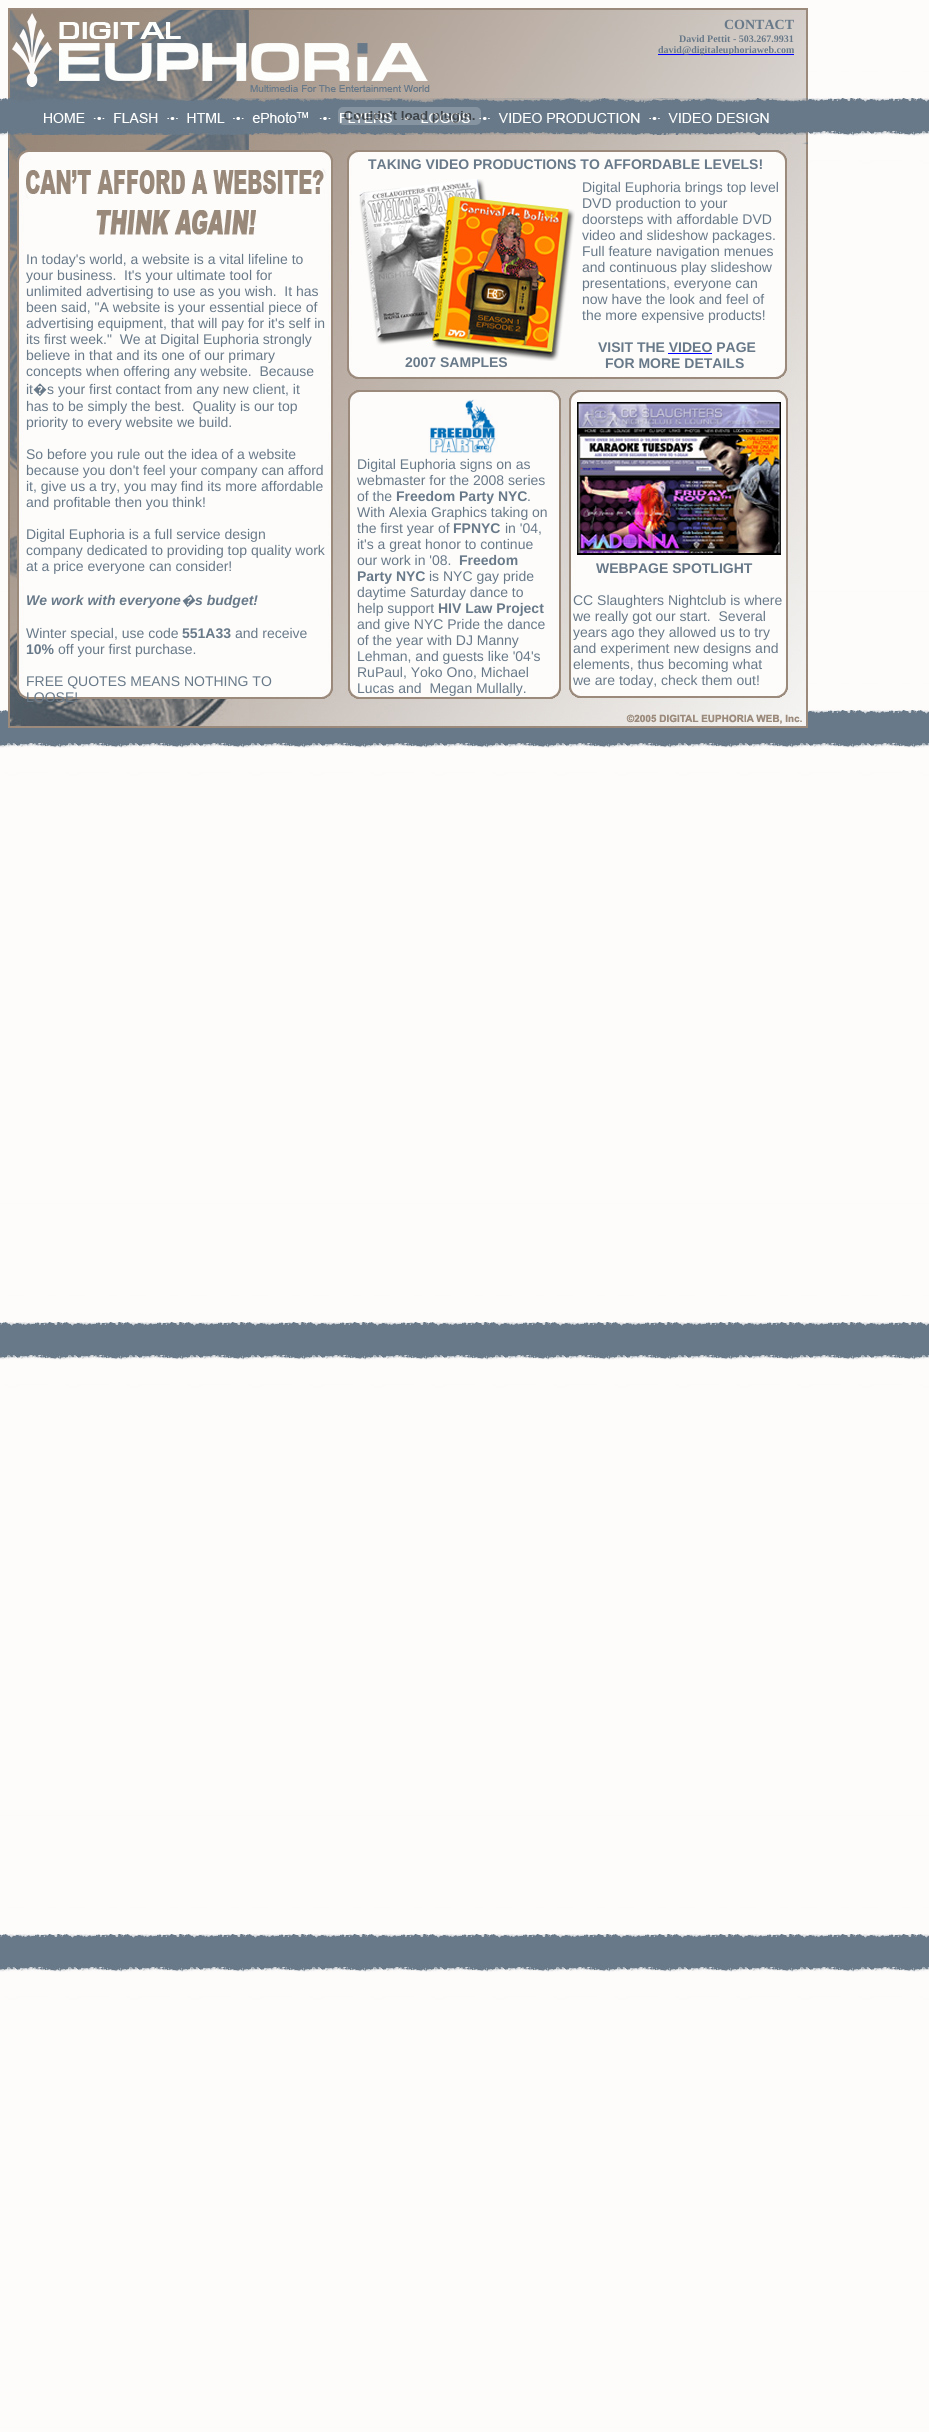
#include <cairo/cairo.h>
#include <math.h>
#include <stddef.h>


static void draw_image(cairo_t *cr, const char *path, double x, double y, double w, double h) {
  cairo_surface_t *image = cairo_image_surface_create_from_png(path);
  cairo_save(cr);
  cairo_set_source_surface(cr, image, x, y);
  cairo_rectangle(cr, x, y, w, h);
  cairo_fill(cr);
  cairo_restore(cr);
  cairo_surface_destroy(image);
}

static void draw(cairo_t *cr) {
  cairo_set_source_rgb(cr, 1, 1, 1);
  cairo_paint(cr);
  draw_image(cr, "images/1.png", 0, 0, 929, 2432);
  draw_image(cr, "images/2.png", 8, 8, 800, 120);
  cairo_set_source_rgb(cr, 0, 0, 1);
  cairo_rectangle(cr, 658, 54, 136, 1);
  cairo_fill(cr);
  draw_image(cr, "images/3.png", 338, 107, 143, 18);
  draw_image(cr, "images/4.png", 8, 128, 800, 600);
  draw_image(cr, "images/5.png", 359, 179, 216, 182);
  cairo_rectangle(cr, 668, 353, 44, 1);
  cairo_fill(cr);
  draw_image(cr, "images/6.png", 428, 399, 70, 56);
  draw_image(cr, "images/7.png", 577, 402, 204, 153);
  cairo_select_font_face(cr, "Liberation Serif", CAIRO_FONT_SLANT_NORMAL, CAIRO_FONT_WEIGHT_BOLD);
  cairo_set_font_size(cr, 14);
  cairo_set_source_rgb(cr, 104 / 255.0, 121 / 255.0, 137 / 255.0);
  cairo_move_to(cr, 724, 29);
  cairo_show_text(cr, "CONTACT");
  cairo_set_font_size(cr, 10);
  cairo_move_to(cr, 679, 42);
  cairo_show_text(cr, "David Pettit - 503.267.9931");
  cairo_move_to(cr, 658, 53);
  cairo_show_text(cr, "david@digitaleuphoriaweb.com");
  cairo_select_font_face(cr, "Liberation Sans", CAIRO_FONT_SLANT_NORMAL, CAIRO_FONT_WEIGHT_BOLD);
  cairo_set_font_size(cr, 14);
  cairo_move_to(cr, 368, 169);
  cairo_show_text(cr, "TAKING VIDEO PRODUCTIONS TO AFFORDABLE LEVELS!");
  cairo_select_font_face(cr, "Liberation Sans", CAIRO_FONT_SLANT_NORMAL, CAIRO_FONT_WEIGHT_NORMAL);
  cairo_move_to(cr, 26, 264);
  cairo_show_text(cr, "In today's world, a website is a vital lifeline to");
  cairo_move_to(cr, 26, 280);
  cairo_show_text(cr, "your business.  It's your ultimate tool for");
  cairo_move_to(cr, 26, 296);
  cairo_show_text(cr, "unlimited advertising to use as you wish.  It has");
  cairo_move_to(cr, 26, 312);
  cairo_show_text(cr, "been said, \"A website is your essential piece of");
  cairo_move_to(cr, 26, 328);
  cairo_show_text(cr, "advertising equipment, that will pay for it's self in");
  cairo_move_to(cr, 26, 344);
  cairo_show_text(cr, "its first week.\"  We at Digital Euphoria strongly");
  cairo_move_to(cr, 26, 360);
  cairo_show_text(cr, "believe in that and its one of our primary");
  cairo_move_to(cr, 26, 376);
  cairo_show_text(cr, "concepts when offering any website.  Because");
  cairo_move_to(cr, 26, 394);
  cairo_show_text(cr, "it");
  cairo_select_font_face(cr, "Noto Sans", CAIRO_FONT_SLANT_NORMAL, CAIRO_FONT_WEIGHT_NORMAL);
  cairo_move_to(cr, 33, 394);
  cairo_show_text(cr, "�");
  cairo_select_font_face(cr, "Liberation Sans", CAIRO_FONT_SLANT_NORMAL, CAIRO_FONT_WEIGHT_NORMAL);
  cairo_move_to(cr, 47, 394);
  cairo_show_text(cr, "s your first contact from any new client, it");
  cairo_move_to(cr, 26, 411);
  cairo_show_text(cr, "has to be simply the best.  Quality is our top");
  cairo_move_to(cr, 26, 427);
  cairo_show_text(cr, "priority to every website we build.");
  cairo_move_to(cr, 26, 459);
  cairo_show_text(cr, "So before you rule out the idea of a website");
  cairo_move_to(cr, 26, 475);
  cairo_show_text(cr, "because you don't feel your company can afford");
  cairo_move_to(cr, 26, 491);
  cairo_show_text(cr, "it, give us a try, you may find its more affordable");
  cairo_move_to(cr, 26, 507);
  cairo_show_text(cr, "and profitable then you think!");
  cairo_move_to(cr, 26, 539);
  cairo_show_text(cr, "Digital Euphoria is a full service design");
  cairo_move_to(cr, 26, 555);
  cairo_show_text(cr, "company dedicated to providing top quality work");
  cairo_move_to(cr, 26, 571);
  cairo_show_text(cr, "at a price everyone can consider!");
  cairo_select_font_face(cr, "Liberation Sans", CAIRO_FONT_SLANT_ITALIC, CAIRO_FONT_WEIGHT_BOLD);
  cairo_move_to(cr, 26, 605);
  cairo_show_text(cr, "We work with everyone");
  cairo_select_font_face(cr, "Noto Sans", CAIRO_FONT_SLANT_ITALIC, CAIRO_FONT_WEIGHT_BOLD);
  cairo_move_to(cr, 181, 605);
  cairo_show_text(cr, "�");
  cairo_select_font_face(cr, "Liberation Sans", CAIRO_FONT_SLANT_ITALIC, CAIRO_FONT_WEIGHT_BOLD);
  cairo_move_to(cr, 195, 605);
  cairo_show_text(cr, "s budget!");
  cairo_select_font_face(cr, "Liberation Sans", CAIRO_FONT_SLANT_NORMAL, CAIRO_FONT_WEIGHT_NORMAL);
  cairo_move_to(cr, 26, 638);
  cairo_show_text(cr, "Winter special, use code");
  cairo_select_font_face(cr, "Liberation Sans", CAIRO_FONT_SLANT_NORMAL, CAIRO_FONT_WEIGHT_BOLD);
  cairo_move_to(cr, 182, 638);
  cairo_show_text(cr, "551A33");
  cairo_select_font_face(cr, "Liberation Sans", CAIRO_FONT_SLANT_NORMAL, CAIRO_FONT_WEIGHT_NORMAL);
  cairo_move_to(cr, 235, 638);
  cairo_show_text(cr, "and receive");
  cairo_select_font_face(cr, "Liberation Sans", CAIRO_FONT_SLANT_NORMAL, CAIRO_FONT_WEIGHT_BOLD);
  cairo_move_to(cr, 26, 654);
  cairo_show_text(cr, "10%");
  cairo_select_font_face(cr, "Liberation Sans", CAIRO_FONT_SLANT_NORMAL, CAIRO_FONT_WEIGHT_NORMAL);
  cairo_move_to(cr, 58, 654);
  cairo_show_text(cr, "off your first purchase.");
  cairo_move_to(cr, 26, 686);
  cairo_show_text(cr, "FREE QUOTES MEANS NOTHING TO");
  cairo_move_to(cr, 26, 702);
  cairo_show_text(cr, "LOOSE!");
  cairo_move_to(cr, 582, 192);
  cairo_show_text(cr, "Digital Euphoria brings top level");
  cairo_move_to(cr, 582, 208);
  cairo_show_text(cr, "DVD production to your");
  cairo_move_to(cr, 582, 224);
  cairo_show_text(cr, "doorsteps with affordable DVD");
  cairo_move_to(cr, 582, 240);
  cairo_show_text(cr, "video and slideshow packages.");
  cairo_move_to(cr, 582, 256);
  cairo_show_text(cr, "Full feature navigation menues");
  cairo_move_to(cr, 582, 272);
  cairo_show_text(cr, "and continuous play slideshow");
  cairo_move_to(cr, 582, 288);
  cairo_show_text(cr, "presentations, everyone can");
  cairo_move_to(cr, 582, 304);
  cairo_show_text(cr, "now have the look and feel of");
  cairo_move_to(cr, 582, 320);
  cairo_show_text(cr, "the more expensive products!");
  cairo_select_font_face(cr, "Liberation Sans", CAIRO_FONT_SLANT_NORMAL, CAIRO_FONT_WEIGHT_BOLD);
  cairo_move_to(cr, 598, 352);
  cairo_show_text(cr, "VISIT THE VIDEO PAGE");
  cairo_move_to(cr, 605, 368);
  cairo_show_text(cr, "FOR MORE DETAILS");
  cairo_move_to(cr, 405, 367);
  cairo_show_text(cr, "2007 SAMPLES");
  cairo_select_font_face(cr, "Liberation Sans", CAIRO_FONT_SLANT_NORMAL, CAIRO_FONT_WEIGHT_NORMAL);
  cairo_move_to(cr, 357, 469);
  cairo_show_text(cr, "Digital Euphoria signs on as");
  cairo_move_to(cr, 357, 485);
  cairo_show_text(cr, "webmaster for the 2008 series");
  cairo_move_to(cr, 357, 501);
  cairo_show_text(cr, "of the");
  cairo_select_font_face(cr, "Liberation Sans", CAIRO_FONT_SLANT_NORMAL, CAIRO_FONT_WEIGHT_BOLD);
  cairo_move_to(cr, 396, 501);
  cairo_show_text(cr, "Freedom Party NYC");
  cairo_select_font_face(cr, "Liberation Sans", CAIRO_FONT_SLANT_NORMAL, CAIRO_FONT_WEIGHT_NORMAL);
  cairo_move_to(cr, 527, 501);
  cairo_show_text(cr, ".");
  cairo_move_to(cr, 357, 517);
  cairo_show_text(cr, "With Alexia Graphics taking on");
  cairo_move_to(cr, 357, 533);
  cairo_show_text(cr, "the first year of");
  cairo_select_font_face(cr, "Liberation Sans", CAIRO_FONT_SLANT_NORMAL, CAIRO_FONT_WEIGHT_BOLD);
  cairo_move_to(cr, 453, 533);
  cairo_show_text(cr, "FPNYC");
  cairo_select_font_face(cr, "Liberation Sans", CAIRO_FONT_SLANT_NORMAL, CAIRO_FONT_WEIGHT_NORMAL);
  cairo_move_to(cr, 505, 533);
  cairo_show_text(cr, "in '04,");
  cairo_move_to(cr, 357, 549);
  cairo_show_text(cr, "it's a great honor to continue");
  cairo_move_to(cr, 357, 565);
  cairo_show_text(cr, "our work in '08.");
  cairo_select_font_face(cr, "Liberation Sans", CAIRO_FONT_SLANT_NORMAL, CAIRO_FONT_WEIGHT_BOLD);
  cairo_move_to(cr, 459, 565);
  cairo_show_text(cr, "Freedom");
  cairo_move_to(cr, 357, 581);
  cairo_show_text(cr, "Party NYC");
  cairo_select_font_face(cr, "Liberation Sans", CAIRO_FONT_SLANT_NORMAL, CAIRO_FONT_WEIGHT_NORMAL);
  cairo_move_to(cr, 429, 581);
  cairo_show_text(cr, "is NYC gay pride");
  cairo_move_to(cr, 357, 597);
  cairo_show_text(cr, "daytime Saturday dance to");
  cairo_move_to(cr, 357, 613);
  cairo_show_text(cr, "help support");
  cairo_select_font_face(cr, "Liberation Sans", CAIRO_FONT_SLANT_NORMAL, CAIRO_FONT_WEIGHT_BOLD);
  cairo_move_to(cr, 438, 613);
  cairo_show_text(cr, "HIV Law Project");
  cairo_select_font_face(cr, "Liberation Sans", CAIRO_FONT_SLANT_NORMAL, CAIRO_FONT_WEIGHT_NORMAL);
  cairo_move_to(cr, 357, 629);
  cairo_show_text(cr, "and give NYC Pride the dance");
  cairo_move_to(cr, 357, 645);
  cairo_show_text(cr, "of the year with DJ Manny");
  cairo_move_to(cr, 357, 661);
  cairo_show_text(cr, "Lehman, and guests like '04's");
  cairo_move_to(cr, 357, 677);
  cairo_show_text(cr, "RuPaul, Yoko Ono, Michael");
  cairo_move_to(cr, 357, 693);
  cairo_show_text(cr, "Lucas and  Megan Mullally.");
  cairo_select_font_face(cr, "Liberation Sans", CAIRO_FONT_SLANT_NORMAL, CAIRO_FONT_WEIGHT_BOLD);
  cairo_move_to(cr, 596, 573);
  cairo_show_text(cr, "WEBPAGE SPOTLIGHT");
  cairo_select_font_face(cr, "Liberation Sans", CAIRO_FONT_SLANT_NORMAL, CAIRO_FONT_WEIGHT_NORMAL);
  cairo_move_to(cr, 573, 605);
  cairo_show_text(cr, "CC Slaughters Nightclub is where");
  cairo_move_to(cr, 573, 621);
  cairo_show_text(cr, "we really got our start.  Several");
  cairo_move_to(cr, 573, 637);
  cairo_show_text(cr, "years ago they allowed us to try");
  cairo_move_to(cr, 573, 653);
  cairo_show_text(cr, "and experiment new designs and");
  cairo_move_to(cr, 573, 669);
  cairo_show_text(cr, "elements, thus becoming what");
  cairo_move_to(cr, 573, 685);
  cairo_show_text(cr, "we are today, check them out!");
}

int main(void) {
  cairo_surface_t *surface = cairo_image_surface_create(CAIRO_FORMAT_RGB24, 929, 2432);
  cairo_t *cr = cairo_create(surface);
  cairo_font_options_t *options = cairo_font_options_create();
  cairo_font_options_set_hint_metrics(options, CAIRO_HINT_METRICS_OFF);
  cairo_font_options_set_hint_style(options, CAIRO_HINT_STYLE_NONE);
  cairo_set_font_options(cr, options);
  cairo_set_miter_limit(cr, 4);
  draw(cr);
  cairo_surface_write_to_png(surface, "out.png");
  cairo_font_options_destroy(options);
  cairo_destroy(cr);
  cairo_surface_destroy(surface);
  return 0;
}
